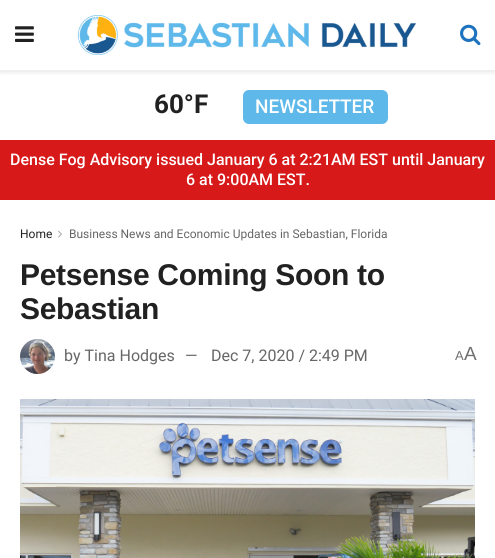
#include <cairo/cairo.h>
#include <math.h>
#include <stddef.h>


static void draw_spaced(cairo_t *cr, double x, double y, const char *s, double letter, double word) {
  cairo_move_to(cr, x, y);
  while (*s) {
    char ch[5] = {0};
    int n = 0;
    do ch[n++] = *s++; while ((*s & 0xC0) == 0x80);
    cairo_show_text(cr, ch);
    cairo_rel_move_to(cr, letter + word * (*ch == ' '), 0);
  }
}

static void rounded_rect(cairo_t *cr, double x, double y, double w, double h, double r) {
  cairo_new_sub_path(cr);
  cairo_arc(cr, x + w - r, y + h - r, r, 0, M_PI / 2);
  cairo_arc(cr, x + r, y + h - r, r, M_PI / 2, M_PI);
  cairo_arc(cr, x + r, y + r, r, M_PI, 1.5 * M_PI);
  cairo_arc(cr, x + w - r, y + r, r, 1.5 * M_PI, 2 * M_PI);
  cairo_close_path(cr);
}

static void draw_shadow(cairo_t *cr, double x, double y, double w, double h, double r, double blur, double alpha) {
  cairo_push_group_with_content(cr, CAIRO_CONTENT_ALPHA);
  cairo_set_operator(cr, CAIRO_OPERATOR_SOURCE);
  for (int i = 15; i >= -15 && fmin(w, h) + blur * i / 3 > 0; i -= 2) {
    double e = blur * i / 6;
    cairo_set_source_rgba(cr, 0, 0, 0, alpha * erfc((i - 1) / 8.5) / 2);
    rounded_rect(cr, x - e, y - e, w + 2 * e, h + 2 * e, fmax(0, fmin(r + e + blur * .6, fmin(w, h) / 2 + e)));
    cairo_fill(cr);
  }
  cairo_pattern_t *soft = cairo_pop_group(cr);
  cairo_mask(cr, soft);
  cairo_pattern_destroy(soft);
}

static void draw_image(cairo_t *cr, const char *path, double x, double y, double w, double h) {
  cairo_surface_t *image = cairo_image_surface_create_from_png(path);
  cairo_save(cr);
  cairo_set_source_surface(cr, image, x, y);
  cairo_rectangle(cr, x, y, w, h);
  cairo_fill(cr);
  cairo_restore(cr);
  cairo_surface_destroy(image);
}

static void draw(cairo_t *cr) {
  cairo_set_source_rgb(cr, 1, 1, 1);
  cairo_paint(cr);
  cairo_save(cr);
  cairo_rectangle(cr, 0, 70, 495, 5);
  cairo_clip(cr);
  cairo_set_source_rgb(cr, 0, 0, 0);
  draw_shadow(cr, 0, 2, 495, 70, 0, 3, 0.1);
  cairo_restore(cr);
  draw_image(cr, "images/1.png", 15, 26, 19, 16);
  draw_image(cr, "images/2.png", 77, 15, 339, 40);
  draw_image(cr, "images/3.png", 460, 24, 21, 22);
  cairo_set_source_rgb(cr, 94 / 255.0, 184 / 255.0, 234 / 255.0);
  rounded_rect(cr, 243, 90, 145, 34, 6);
  cairo_fill(cr);
  cairo_set_source_rgb(cr, 215 / 255.0, 25 / 255.0, 25 / 255.0);
  cairo_rectangle(cr, 0, 140, 495, 60);
  cairo_fill(cr);
  draw_image(cr, "images/4.png", 58, 230, 4, 8);
  draw_image(cr, "images/5.png", 20, 339, 35, 35);
  draw_image(cr, "images/6.png", 20, 399, 455, 159);
  cairo_select_font_face(cr, "Roboto", CAIRO_FONT_SLANT_NORMAL, CAIRO_FONT_WEIGHT_BOLD);
  cairo_set_font_size(cr, 26);
  cairo_set_source_rgb(cr, 33 / 255.0, 33 / 255.0, 33 / 255.0);
  cairo_move_to(cr, 154, 113);
  cairo_show_text(cr, "60°F");
  cairo_select_font_face(cr, "Roboto Medium", CAIRO_FONT_SLANT_NORMAL, CAIRO_FONT_WEIGHT_NORMAL);
  cairo_set_font_size(cr, 19);
  cairo_set_source_rgb(cr, 1, 1, 1);
  cairo_move_to(cr, 255, 113);
  cairo_show_text(cr, "NEWSLETTER");
  cairo_set_font_size(cr, 16);
  cairo_move_to(cr, 10, 165);
  cairo_show_text(cr, "Dense Fog Advisory issued January 6 at 2:21AM EST until January");
  cairo_move_to(cr, 186, 185);
  cairo_show_text(cr, "6 at 9:00AM EST.");
  cairo_select_font_face(cr, "Roboto", CAIRO_FONT_SLANT_NORMAL, CAIRO_FONT_WEIGHT_NORMAL);
  cairo_set_font_size(cr, 12);
  cairo_set_source_rgb(cr, 33 / 255.0, 33 / 255.0, 33 / 255.0);
  cairo_move_to(cr, 20, 238);
  cairo_show_text(cr, "Home");
  cairo_set_source_rgb(cr, 102 / 255.0, 102 / 255.0, 102 / 255.0);
  cairo_move_to(cr, 69, 238);
  cairo_show_text(cr, "Business News and Economic Updates in Sebastian, Florida");
  cairo_select_font_face(cr, "Liberation Sans", CAIRO_FONT_SLANT_NORMAL, CAIRO_FONT_WEIGHT_BOLD);
  cairo_set_font_size(cr, 30);
  cairo_set_source_rgb(cr, 33 / 255.0, 33 / 255.0, 33 / 255.0);
  draw_spaced(cr, 20, 285, "Petsense Coming Soon to", -0.3, 0);
  draw_spaced(cr, 20, 319, "Sebastian", -0.3, 0);
  cairo_select_font_face(cr, "Roboto", CAIRO_FONT_SLANT_NORMAL, CAIRO_FONT_WEIGHT_NORMAL);
  cairo_set_font_size(cr, 16);
  cairo_set_source_rgb(cr, 102 / 255.0, 102 / 255.0, 102 / 255.0);
  cairo_move_to(cr, 64, 361);
  cairo_show_text(cr, "by Tina Hodges");
  cairo_move_to(cr, 185, 361);
  cairo_show_text(cr, "—");
  cairo_move_to(cr, 211, 361);
  cairo_show_text(cr, "Dec 7, 2020 / 2:49 PM");
  cairo_select_font_face(cr, "Liberation Sans", CAIRO_FONT_SLANT_NORMAL, CAIRO_FONT_WEIGHT_NORMAL);
  cairo_set_font_size(cr, 13);
  cairo_set_source_rgb(cr, 112 / 255.0, 112 / 255.0, 112 / 255.0);
  cairo_move_to(cr, 455, 360);
  cairo_show_text(cr, "A");
  cairo_set_font_size(cr, 19);
  cairo_move_to(cr, 464, 360);
  cairo_show_text(cr, "A");
}

int main(void) {
  cairo_surface_t *surface = cairo_image_surface_create(CAIRO_FORMAT_RGB24, 495, 558);
  cairo_t *cr = cairo_create(surface);
  cairo_font_options_t *options = cairo_font_options_create();
  cairo_font_options_set_hint_metrics(options, CAIRO_HINT_METRICS_OFF);
  cairo_font_options_set_hint_style(options, CAIRO_HINT_STYLE_NONE);
  cairo_set_font_options(cr, options);
  cairo_set_miter_limit(cr, 4);
  draw(cr);
  cairo_surface_write_to_png(surface, "out.png");
  cairo_font_options_destroy(options);
  cairo_destroy(cr);
  cairo_surface_destroy(surface);
  return 0;
}
